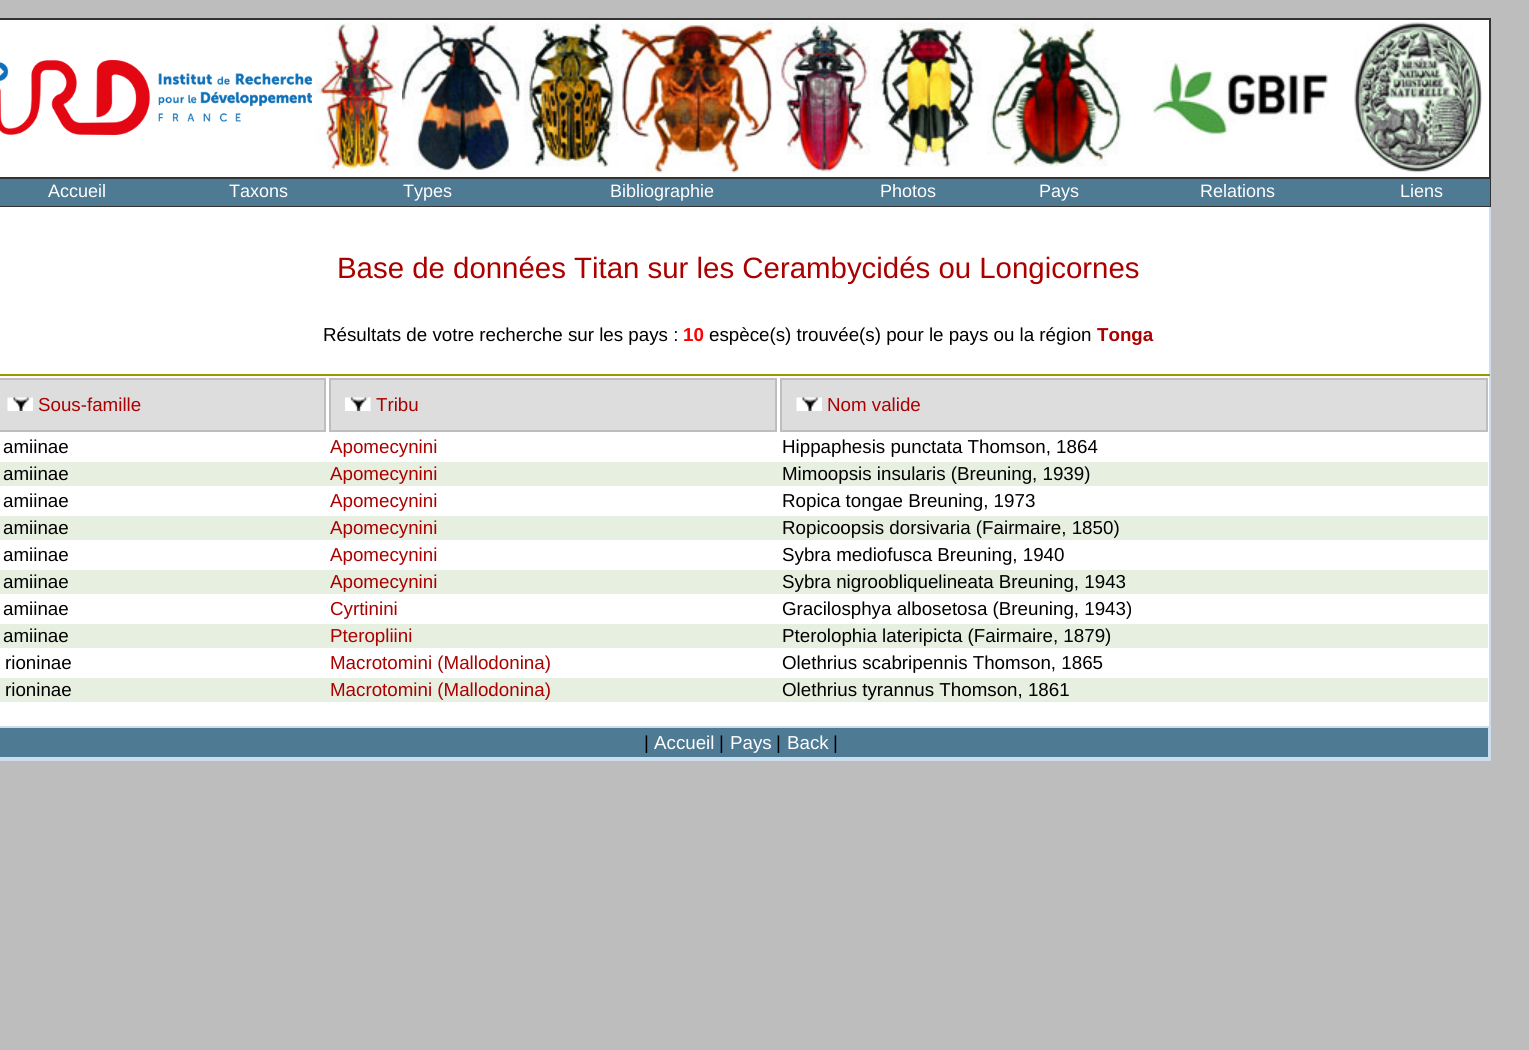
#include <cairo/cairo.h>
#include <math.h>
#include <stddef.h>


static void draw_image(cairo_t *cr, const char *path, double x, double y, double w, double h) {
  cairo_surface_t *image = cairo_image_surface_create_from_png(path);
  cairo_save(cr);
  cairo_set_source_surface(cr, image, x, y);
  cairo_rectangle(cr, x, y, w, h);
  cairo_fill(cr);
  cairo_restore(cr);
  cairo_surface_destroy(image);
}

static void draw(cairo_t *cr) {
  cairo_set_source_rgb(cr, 189 / 255.0, 189 / 255.0, 189 / 255.0);
  cairo_paint(cr);
  cairo_set_source_rgb(cr, 1, 1, 1);
  cairo_rectangle(cr, 0, 20, 1489, 157);
  cairo_fill(cr);
  cairo_rectangle(cr, -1, 19, 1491, 162);
  cairo_set_source_rgb(cr, 51 / 255.0, 51 / 255.0, 51 / 255.0);
  cairo_stroke(cr);
  draw_image(cr, "images/1.png", 0, 60, 312, 75);
  draw_image(cr, "images/2.png", 315, 22, 84, 151);
  draw_image(cr, "images/3.png", 402, 22, 119, 151);
  draw_image(cr, "images/4.png", 523, 22, 95, 145);
  draw_image(cr, "images/5.png", 621, 22, 152, 151);
  draw_image(cr, "images/6.png", 775, 22, 95, 151);
  draw_image(cr, "images/7.png", 873, 22, 108, 145);
  draw_image(cr, "images/8.png", 987, 22, 138, 145);
  draw_image(cr, "images/9.png", 1152, 60, 177, 84);
  draw_image(cr, "images/10.png", 1354, 22, 128, 151);
  cairo_set_source_rgb(cr, 1, 1, 1);
  cairo_rectangle(cr, 0, 207, 1489, 519);
  cairo_fill(cr);
  cairo_rectangle(cr, -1, 181, 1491, 579);
  cairo_set_source_rgb(cr, 204 / 255.0, 221 / 255.0, 238 / 255.0);
  cairo_stroke(cr);
  cairo_rectangle(cr, -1, 178, 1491, 28);
  cairo_set_source_rgb(cr, 51 / 255.0, 51 / 255.0, 51 / 255.0);
  cairo_stroke(cr);
  cairo_set_source_rgb(cr, 78 / 255.0, 122 / 255.0, 148 / 255.0);
  cairo_rectangle(cr, 0, 179, 1490, 27);
  cairo_fill(cr);
  cairo_set_source_rgb(cr, 153 / 255.0, 153 / 255.0, 0);
  cairo_rectangle(cr, 0, 374, 1490, 2);
  cairo_fill(cr);
  cairo_set_source_rgb(cr, 221 / 255.0, 221 / 255.0, 221 / 255.0);
  cairo_rectangle(cr, -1, 379, 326, 52);
  cairo_fill_preserve(cr);
  cairo_set_source_rgb(cr, 190 / 255.0, 190 / 255.0, 190 / 255.0);
  cairo_stroke(cr);
  draw_image(cr, "images/11.png", 7, 397, 26, 14);
  cairo_set_source_rgb(cr, 221 / 255.0, 221 / 255.0, 221 / 255.0);
  cairo_rectangle(cr, 330, 379, 446, 52);
  cairo_fill_preserve(cr);
  cairo_set_source_rgb(cr, 190 / 255.0, 190 / 255.0, 190 / 255.0);
  cairo_stroke(cr);
  draw_image(cr, "images/12.png", 345, 397, 26, 14);
  cairo_set_source_rgb(cr, 221 / 255.0, 221 / 255.0, 221 / 255.0);
  cairo_rectangle(cr, 781, 379, 706, 52);
  cairo_fill_preserve(cr);
  cairo_set_source_rgb(cr, 190 / 255.0, 190 / 255.0, 190 / 255.0);
  cairo_stroke(cr);
  draw_image(cr, "images/11.png", 796, 397, 26, 14);
  cairo_set_source_rgb(cr, 231 / 255.0, 239 / 255.0, 224 / 255.0);
  cairo_rectangle(cr, 0, 462, 1488, 24);
  cairo_fill(cr);
  cairo_rectangle(cr, 0, 516, 1488, 24);
  cairo_fill(cr);
  cairo_rectangle(cr, 0, 570, 1488, 24);
  cairo_fill(cr);
  cairo_rectangle(cr, 0, 624, 1488, 24);
  cairo_fill(cr);
  cairo_rectangle(cr, 0, 678, 1488, 24);
  cairo_fill(cr);
  cairo_set_source_rgb(cr, 78 / 255.0, 122 / 255.0, 148 / 255.0);
  cairo_rectangle(cr, -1, 727, 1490, 31);
  cairo_fill_preserve(cr);
  cairo_set_source_rgb(cr, 204 / 255.0, 221 / 255.0, 238 / 255.0);
  cairo_stroke(cr);
  cairo_select_font_face(cr, "Liberation Sans", CAIRO_FONT_SLANT_NORMAL, CAIRO_FONT_WEIGHT_NORMAL);
  cairo_set_font_size(cr, 18);
  cairo_set_source_rgb(cr, 1, 1, 1);
  cairo_move_to(cr, 48, 197);
  cairo_show_text(cr, "Accueil");
  cairo_move_to(cr, 229, 197);
  cairo_show_text(cr, "Taxons");
  cairo_move_to(cr, 403, 197);
  cairo_show_text(cr, "Types");
  cairo_move_to(cr, 610, 197);
  cairo_show_text(cr, "Bibliographie");
  cairo_move_to(cr, 880, 197);
  cairo_show_text(cr, "Photos");
  cairo_move_to(cr, 1039, 197);
  cairo_show_text(cr, "Pays");
  cairo_move_to(cr, 1200, 197);
  cairo_show_text(cr, "Relations");
  cairo_move_to(cr, 1400, 197);
  cairo_show_text(cr, "Liens");
  cairo_set_font_size(cr, 29.4);
  cairo_set_source_rgb(cr, 170 / 255.0, 0, 0);
  cairo_move_to(cr, 337, 278);
  cairo_show_text(cr, "Base de données Titan sur les Cerambycidés ou Longicornes");
  cairo_set_font_size(cr, 18.75);
  cairo_set_source_rgb(cr, 0, 0, 0);
  cairo_move_to(cr, 323, 341);
  cairo_show_text(cr, "Résultats de votre recherche sur les pays :");
  cairo_select_font_face(cr, "Liberation Sans", CAIRO_FONT_SLANT_NORMAL, CAIRO_FONT_WEIGHT_BOLD);
  cairo_set_source_rgb(cr, 1, 0, 0);
  cairo_move_to(cr, 683, 341);
  cairo_show_text(cr, "10");
  cairo_select_font_face(cr, "Liberation Sans", CAIRO_FONT_SLANT_NORMAL, CAIRO_FONT_WEIGHT_NORMAL);
  cairo_set_source_rgb(cr, 0, 0, 0);
  cairo_move_to(cr, 709, 341);
  cairo_show_text(cr, "espèce(s) trouvée(s) pour le pays ou la région");
  cairo_select_font_face(cr, "Liberation Sans", CAIRO_FONT_SLANT_NORMAL, CAIRO_FONT_WEIGHT_BOLD);
  cairo_set_source_rgb(cr, 170 / 255.0, 0, 0);
  cairo_move_to(cr, 1097, 341);
  cairo_show_text(cr, "Tonga");
  cairo_select_font_face(cr, "Liberation Sans", CAIRO_FONT_SLANT_NORMAL, CAIRO_FONT_WEIGHT_NORMAL);
  cairo_move_to(cr, 38, 411);
  cairo_show_text(cr, "Sous-famille");
  cairo_move_to(cr, 376, 411);
  cairo_show_text(cr, "Tribu");
  cairo_move_to(cr, 827, 411);
  cairo_show_text(cr, "Nom valide");
  cairo_set_source_rgb(cr, 0, 0, 0);
  cairo_move_to(cr, 3, 453);
  cairo_show_text(cr, "amiinae");
  cairo_set_source_rgb(cr, 170 / 255.0, 0, 0);
  cairo_move_to(cr, 330, 453);
  cairo_show_text(cr, "Apomecynini");
  cairo_set_source_rgb(cr, 0, 0, 0);
  cairo_move_to(cr, 782, 453);
  cairo_show_text(cr, "Hippaphesis punctata Thomson, 1864");
  cairo_move_to(cr, 3, 480);
  cairo_show_text(cr, "amiinae");
  cairo_set_source_rgb(cr, 170 / 255.0, 0, 0);
  cairo_move_to(cr, 330, 480);
  cairo_show_text(cr, "Apomecynini");
  cairo_set_source_rgb(cr, 0, 0, 0);
  cairo_move_to(cr, 782, 480);
  cairo_show_text(cr, "Mimoopsis insularis (Breuning, 1939)");
  cairo_move_to(cr, 3, 507);
  cairo_show_text(cr, "amiinae");
  cairo_set_source_rgb(cr, 170 / 255.0, 0, 0);
  cairo_move_to(cr, 330, 507);
  cairo_show_text(cr, "Apomecynini");
  cairo_set_source_rgb(cr, 0, 0, 0);
  cairo_move_to(cr, 782, 507);
  cairo_show_text(cr, "Ropica tongae Breuning, 1973");
  cairo_move_to(cr, 3, 534);
  cairo_show_text(cr, "amiinae");
  cairo_set_source_rgb(cr, 170 / 255.0, 0, 0);
  cairo_move_to(cr, 330, 534);
  cairo_show_text(cr, "Apomecynini");
  cairo_set_source_rgb(cr, 0, 0, 0);
  cairo_move_to(cr, 782, 534);
  cairo_show_text(cr, "Ropicoopsis dorsivaria (Fairmaire, 1850)");
  cairo_move_to(cr, 3, 561);
  cairo_show_text(cr, "amiinae");
  cairo_set_source_rgb(cr, 170 / 255.0, 0, 0);
  cairo_move_to(cr, 330, 561);
  cairo_show_text(cr, "Apomecynini");
  cairo_set_source_rgb(cr, 0, 0, 0);
  cairo_move_to(cr, 782, 561);
  cairo_show_text(cr, "Sybra mediofusca Breuning, 1940");
  cairo_move_to(cr, 3, 588);
  cairo_show_text(cr, "amiinae");
  cairo_set_source_rgb(cr, 170 / 255.0, 0, 0);
  cairo_move_to(cr, 330, 588);
  cairo_show_text(cr, "Apomecynini");
  cairo_set_source_rgb(cr, 0, 0, 0);
  cairo_move_to(cr, 782, 588);
  cairo_show_text(cr, "Sybra nigroobliquelineata Breuning, 1943");
  cairo_move_to(cr, 3, 615);
  cairo_show_text(cr, "amiinae");
  cairo_set_source_rgb(cr, 170 / 255.0, 0, 0);
  cairo_move_to(cr, 330, 615);
  cairo_show_text(cr, "Cyrtinini");
  cairo_set_source_rgb(cr, 0, 0, 0);
  cairo_move_to(cr, 782, 615);
  cairo_show_text(cr, "Gracilosphya albosetosa (Breuning, 1943)");
  cairo_move_to(cr, 3, 642);
  cairo_show_text(cr, "amiinae");
  cairo_set_source_rgb(cr, 170 / 255.0, 0, 0);
  cairo_move_to(cr, 330, 642);
  cairo_show_text(cr, "Pteropliini");
  cairo_set_source_rgb(cr, 0, 0, 0);
  cairo_move_to(cr, 782, 642);
  cairo_show_text(cr, "Pterolophia lateripicta (Fairmaire, 1879)");
  cairo_move_to(cr, 5, 669);
  cairo_show_text(cr, "rioninae");
  cairo_set_source_rgb(cr, 170 / 255.0, 0, 0);
  cairo_move_to(cr, 330, 669);
  cairo_show_text(cr, "Macrotomini (Mallodonina)");
  cairo_set_source_rgb(cr, 0, 0, 0);
  cairo_move_to(cr, 782, 669);
  cairo_show_text(cr, "Olethrius scabripennis Thomson, 1865");
  cairo_move_to(cr, 5, 696);
  cairo_show_text(cr, "rioninae");
  cairo_set_source_rgb(cr, 170 / 255.0, 0, 0);
  cairo_move_to(cr, 330, 696);
  cairo_show_text(cr, "Macrotomini (Mallodonina)");
  cairo_set_source_rgb(cr, 0, 0, 0);
  cairo_move_to(cr, 782, 696);
  cairo_show_text(cr, "Olethrius tyrannus Thomson, 1861");
  cairo_move_to(cr, 644, 749);
  cairo_show_text(cr, "|");
  cairo_set_source_rgb(cr, 1, 1, 1);
  cairo_move_to(cr, 654, 749);
  cairo_show_text(cr, "Accueil");
  cairo_set_source_rgb(cr, 0, 0, 0);
  cairo_move_to(cr, 719, 749);
  cairo_show_text(cr, "|");
  cairo_set_source_rgb(cr, 1, 1, 1);
  cairo_move_to(cr, 730, 749);
  cairo_show_text(cr, "Pays");
  cairo_set_source_rgb(cr, 0, 0, 0);
  cairo_move_to(cr, 776, 749);
  cairo_show_text(cr, "|");
  cairo_set_source_rgb(cr, 1, 1, 1);
  cairo_move_to(cr, 787, 749);
  cairo_show_text(cr, "Back");
  cairo_set_source_rgb(cr, 0, 0, 0);
  cairo_move_to(cr, 833, 749);
  cairo_show_text(cr, "|");
}

int main(void) {
  cairo_surface_t *surface = cairo_image_surface_create(CAIRO_FORMAT_RGB24, 1529, 1050);
  cairo_t *cr = cairo_create(surface);
  cairo_font_options_t *options = cairo_font_options_create();
  cairo_font_options_set_hint_metrics(options, CAIRO_HINT_METRICS_OFF);
  cairo_font_options_set_hint_style(options, CAIRO_HINT_STYLE_NONE);
  cairo_set_font_options(cr, options);
  cairo_set_miter_limit(cr, 4);
  draw(cr);
  cairo_surface_write_to_png(surface, "out.png");
  cairo_font_options_destroy(options);
  cairo_destroy(cr);
  cairo_surface_destroy(surface);
  return 0;
}
